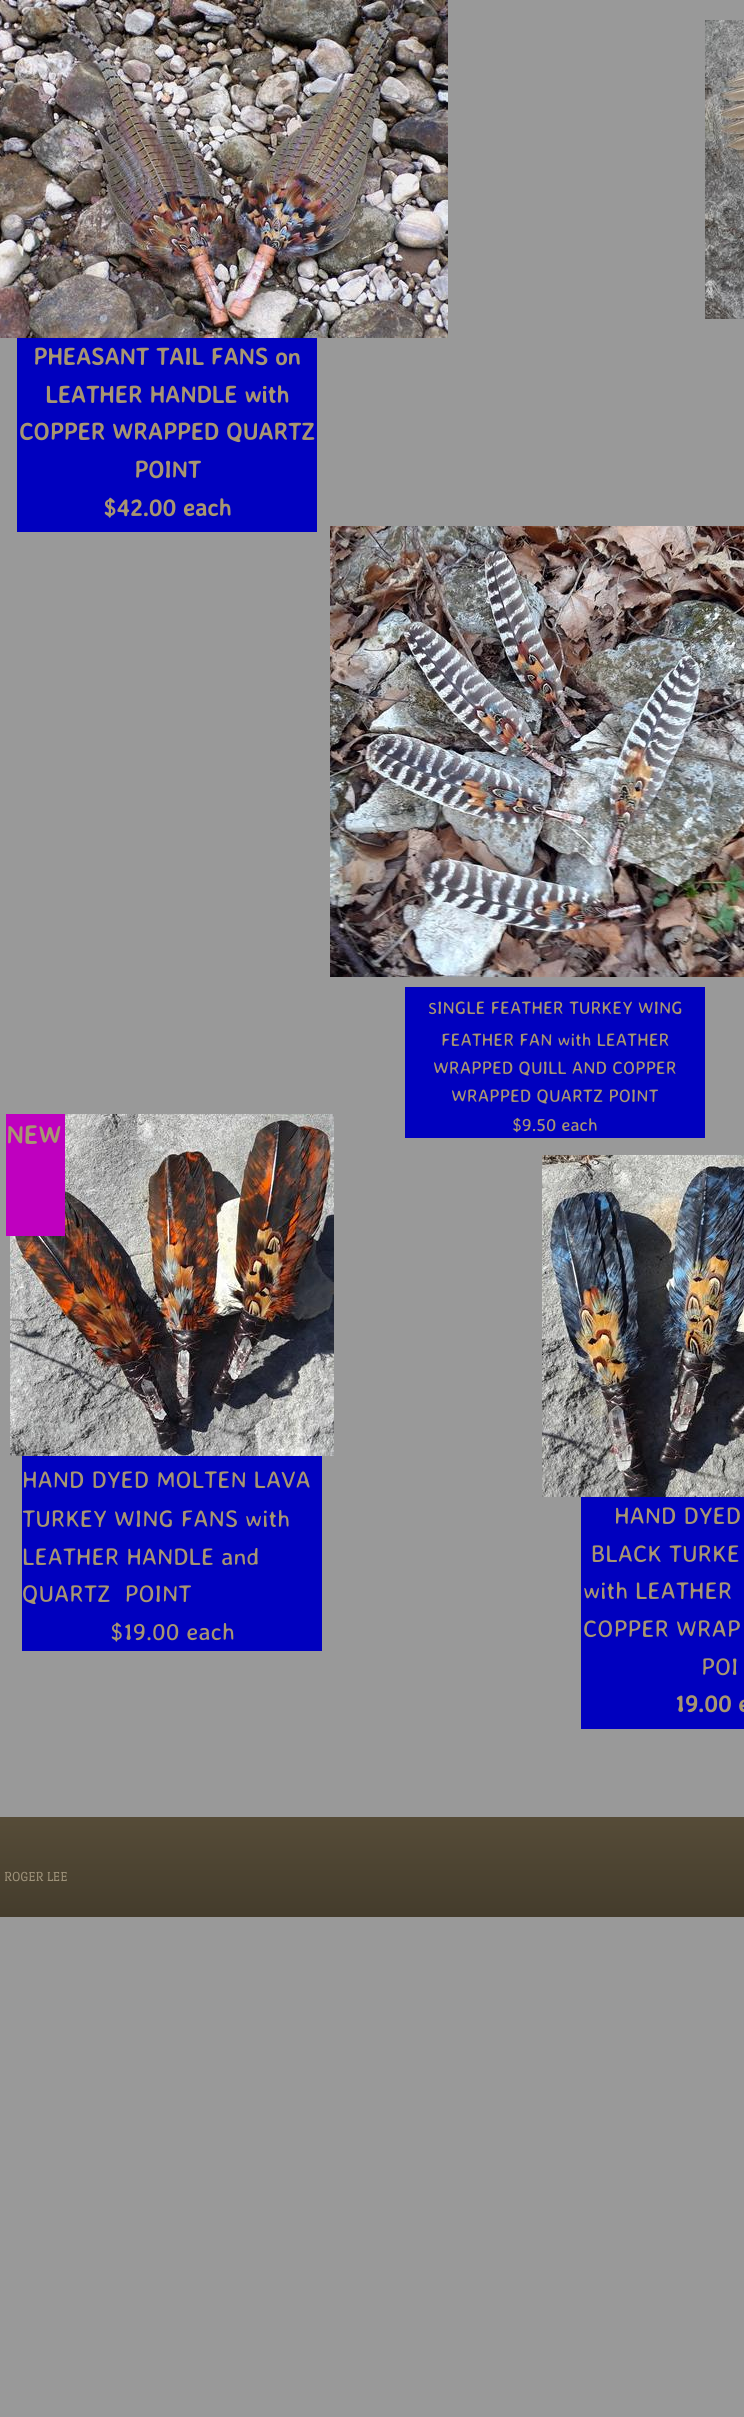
#include <cairo/cairo.h>
#include <math.h>
#include <stddef.h>


static void draw_image(cairo_t *cr, const char *path, double x, double y, double w, double h) {
  cairo_surface_t *image = cairo_image_surface_create_from_png(path);
  cairo_save(cr);
  cairo_set_source_surface(cr, image, x, y);
  cairo_rectangle(cr, x, y, w, h);
  cairo_fill(cr);
  cairo_restore(cr);
  cairo_surface_destroy(image);
}

static void draw(cairo_t *cr) {
  cairo_pattern_t *gradient;
  cairo_set_source_rgb(cr, 153 / 255.0, 153 / 255.0, 153 / 255.0);
  cairo_paint(cr);
  draw_image(cr, "images/1.png", 0, 0, 448, 338);
  draw_image(cr, "images/2.png", 705, 20, 39, 299);
  cairo_set_source_rgb(cr, 0, 0, 191 / 255.0);
  cairo_rectangle(cr, 17, 338, 300, 194);
  cairo_fill(cr);
  draw_image(cr, "images/3.png", 330, 526, 414, 451);
  cairo_rectangle(cr, 405, 987, 300, 151);
  cairo_fill(cr);
  draw_image(cr, "images/4.png", 10, 1114, 324, 342);
  cairo_set_source_rgb(cr, 191 / 255.0, 0, 191 / 255.0);
  cairo_rectangle(cr, 6, 1114, 59, 122);
  cairo_fill(cr);
  draw_image(cr, "images/5.png", 542, 1155, 202, 342);
  cairo_set_source_rgb(cr, 0, 0, 191 / 255.0);
  cairo_rectangle(cr, 22, 1456, 300, 195);
  cairo_fill(cr);
  cairo_rectangle(cr, 581, 1497, 163, 232);
  cairo_fill(cr);
  gradient = cairo_pattern_create_linear(372, 1817, 372, 1917);
  cairo_pattern_add_color_stop_rgba(gradient, 0, 86 / 255.0, 76 / 255.0, 56 / 255.0, 1);
  cairo_pattern_add_color_stop_rgba(gradient, 1, 68 / 255.0, 60 / 255.0, 44 / 255.0, 1);
  cairo_set_source(cr, gradient);
  cairo_pattern_destroy(gradient);
  cairo_rectangle(cr, 0, 1817, 744, 100);
  cairo_fill(cr);
  cairo_select_font_face(cr, "Averia Sans Libre", CAIRO_FONT_SLANT_NORMAL, CAIRO_FONT_WEIGHT_BOLD);
  cairo_set_font_size(cr, 24);
  cairo_set_source_rgb(cr, 167 / 255.0, 149 / 255.0, 113 / 255.0);
  cairo_move_to(cr, 33, 365);
  cairo_show_text(cr, "PHEASANT TAIL FANS on");
  cairo_move_to(cr, 45, 403);
  cairo_show_text(cr, "LEATHER HANDLE with");
  cairo_move_to(cr, 19, 440);
  cairo_show_text(cr, "COPPER WRAPPED QUARTZ");
  cairo_move_to(cr, 134, 478);
  cairo_show_text(cr, "POINT");
  cairo_move_to(cr, 103, 516);
  cairo_show_text(cr, "$42.00 each");
  cairo_select_font_face(cr, "Averia Sans Libre", CAIRO_FONT_SLANT_NORMAL, CAIRO_FONT_WEIGHT_NORMAL);
  cairo_set_font_size(cr, 16);
  cairo_move_to(cr, 428, 1014);
  cairo_show_text(cr, "S");
  cairo_set_font_size(cr, 18);
  cairo_move_to(cr, 437, 1014);
  cairo_show_text(cr, "INGLE FEATHER TURKEY WING");
  cairo_move_to(cr, 441, 1046);
  cairo_show_text(cr, "FEATHER FAN with LEATHER");
  cairo_move_to(cr, 433, 1074);
  cairo_show_text(cr, "WRAPPED QUILL AND COPPER");
  cairo_move_to(cr, 451, 1102);
  cairo_show_text(cr, "WRAPPED QUARTZ POINT");
  cairo_move_to(cr, 512, 1131);
  cairo_show_text(cr, "$9.50 each");
  cairo_select_font_face(cr, "Averia Sans Libre", CAIRO_FONT_SLANT_NORMAL, CAIRO_FONT_WEIGHT_BOLD);
  cairo_set_font_size(cr, 26);
  cairo_move_to(cr, 6, 1144);
  cairo_show_text(cr, "NEW");
  cairo_select_font_face(cr, "Averia Sans Libre", CAIRO_FONT_SLANT_NORMAL, CAIRO_FONT_WEIGHT_NORMAL);
  cairo_set_font_size(cr, 24);
  cairo_move_to(cr, 22, 1488);
  cairo_show_text(cr, "HAND DYED MOLTEN LAVA");
  cairo_move_to(cr, 22, 1527);
  cairo_show_text(cr, "TURKEY WING FANS with");
  cairo_move_to(cr, 22, 1565);
  cairo_show_text(cr, "LEATHER HANDLE and");
  cairo_move_to(cr, 22, 1602);
  cairo_show_text(cr, "QUARTZ  POINT");
  cairo_move_to(cr, 110, 1640);
  cairo_show_text(cr, "$19.00 each");
  cairo_move_to(cr, 614, 1524);
  cairo_show_text(cr, "HAND DYED");
  cairo_move_to(cr, 591, 1562);
  cairo_show_text(cr, "BLACK TURKE");
  cairo_move_to(cr, 583, 1599);
  cairo_show_text(cr, "with LEATHER");
  cairo_move_to(cr, 583, 1637);
  cairo_show_text(cr, "COPPER WRAP");
  cairo_move_to(cr, 701, 1675);
  cairo_show_text(cr, "POI");
  cairo_select_font_face(cr, "Averia Sans Libre", CAIRO_FONT_SLANT_NORMAL, CAIRO_FONT_WEIGHT_BOLD);
  cairo_move_to(cr, 675, 1712);
  cairo_show_text(cr, "19.00 e");
  cairo_select_font_face(cr, "Port Lligat Slab", CAIRO_FONT_SLANT_NORMAL, CAIRO_FONT_WEIGHT_NORMAL);
  cairo_set_font_size(cr, 14);
  cairo_set_source_rgb(cr, 157 / 255.0, 145 / 255.0, 121 / 255.0);
  cairo_move_to(cr, 4, 1881);
  cairo_show_text(cr, "ROGER LEE");
}

int main(void) {
  cairo_surface_t *surface = cairo_image_surface_create(CAIRO_FORMAT_RGB24, 744, 2417);
  cairo_t *cr = cairo_create(surface);
  cairo_font_options_t *options = cairo_font_options_create();
  cairo_font_options_set_hint_metrics(options, CAIRO_HINT_METRICS_OFF);
  cairo_font_options_set_hint_style(options, CAIRO_HINT_STYLE_NONE);
  cairo_set_font_options(cr, options);
  cairo_set_miter_limit(cr, 4);
  draw(cr);
  cairo_surface_write_to_png(surface, "out.png");
  cairo_font_options_destroy(options);
  cairo_destroy(cr);
  cairo_surface_destroy(surface);
  return 0;
}
